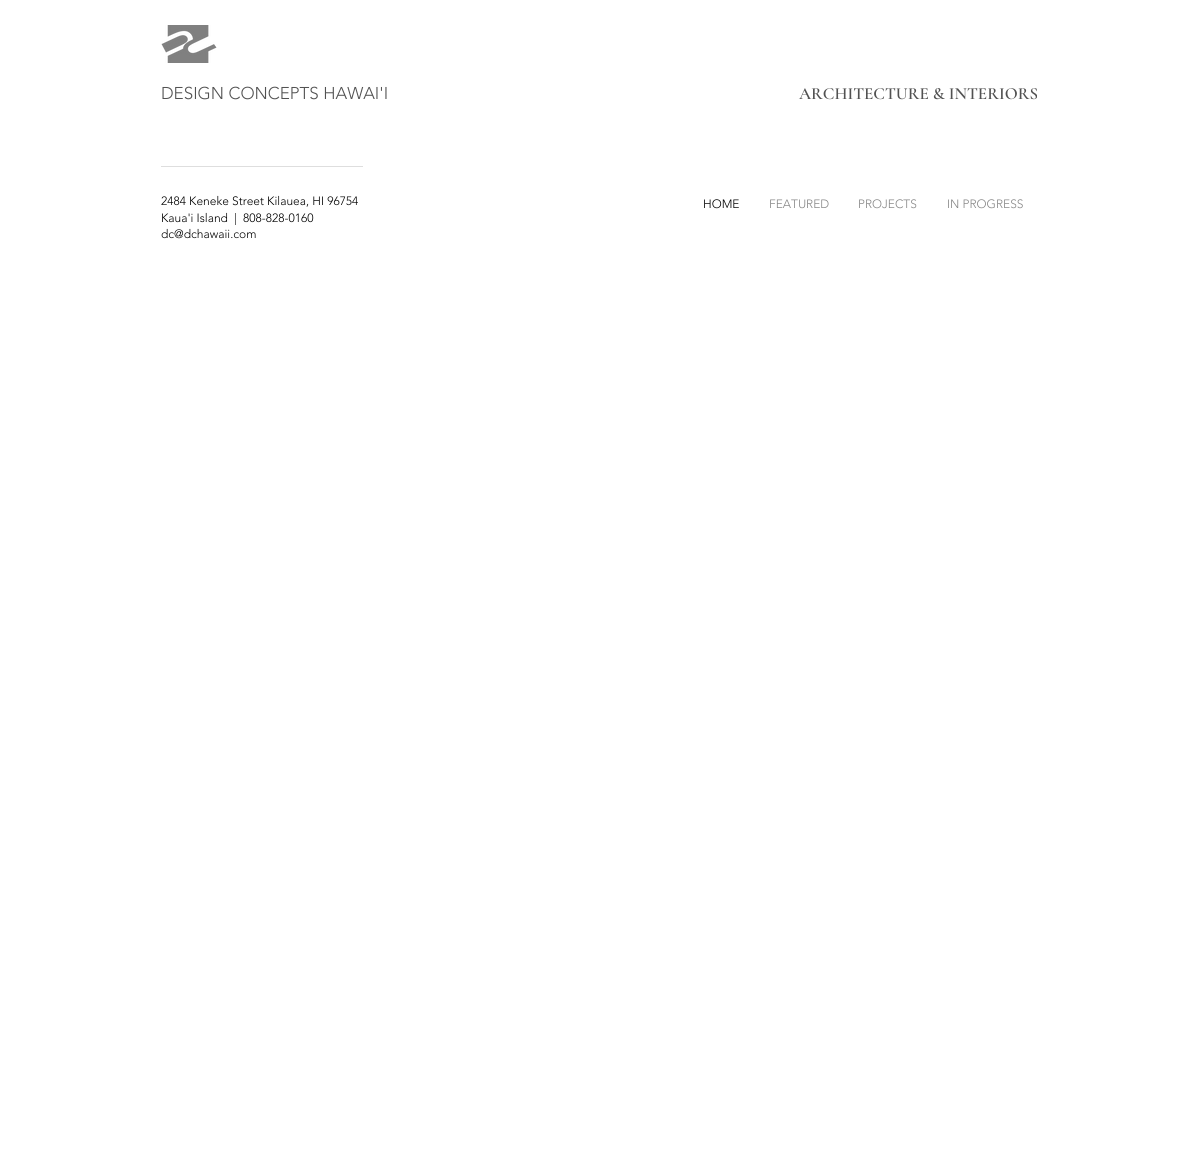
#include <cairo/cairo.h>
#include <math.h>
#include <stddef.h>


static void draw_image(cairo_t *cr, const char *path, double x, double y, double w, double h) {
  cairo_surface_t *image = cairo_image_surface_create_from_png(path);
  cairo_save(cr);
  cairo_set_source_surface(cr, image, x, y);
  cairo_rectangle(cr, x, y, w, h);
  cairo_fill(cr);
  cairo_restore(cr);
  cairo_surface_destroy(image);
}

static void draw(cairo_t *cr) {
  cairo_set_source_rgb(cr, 1, 1, 1);
  cairo_paint(cr);
  draw_image(cr, "images/1.png", 161, 25, 56, 38);
  cairo_set_source_rgb(cr, 222 / 255.0, 222 / 255.0, 222 / 255.0);
  cairo_rectangle(cr, 161, 166, 202, 1);
  cairo_fill(cr);
  cairo_select_font_face(cr, "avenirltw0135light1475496 Light", CAIRO_FONT_SLANT_NORMAL, CAIRO_FONT_WEIGHT_NORMAL);
  cairo_set_font_size(cr, 17);
  cairo_set_source_rgb(cr, 81 / 255.0, 81 / 255.0, 81 / 255.0);
  cairo_move_to(cr, 161, 99);
  cairo_show_text(cr, "DESIGN CONCEPTS HAWAI'I");
  cairo_select_font_face(cr, "Cormorant Garamond SemiBold", CAIRO_FONT_SLANT_NORMAL, CAIRO_FONT_WEIGHT_NORMAL);
  cairo_move_to(cr, 799, 99);
  cairo_show_text(cr, "ARCHITECTURE & INTERIORS");
  cairo_select_font_face(cr, "avenirltw0135light1475496 Light", CAIRO_FONT_SLANT_NORMAL, CAIRO_FONT_WEIGHT_NORMAL);
  cairo_set_font_size(cr, 12);
  cairo_set_source_rgb(cr, 0, 0, 0);
  cairo_move_to(cr, 161, 205);
  cairo_show_text(cr, "2484 Keneke Street Kilauea, HI 96754");
  cairo_move_to(cr, 161, 222);
  cairo_show_text(cr, "Kaua'i Island  |  808-828-0160");
  cairo_move_to(cr, 161, 238);
  cairo_show_text(cr, "dc@dchawaii.com");
  cairo_move_to(cr, 703, 208);
  cairo_show_text(cr, "HOME");
  cairo_set_source_rgb(cr, 133 / 255.0, 133 / 255.0, 133 / 255.0);
  cairo_move_to(cr, 769, 208);
  cairo_show_text(cr, "FEATURED");
  cairo_move_to(cr, 858, 208);
  cairo_show_text(cr, "PROJECTS");
  cairo_move_to(cr, 947, 208);
  cairo_show_text(cr, "IN PROGRESS");
}

int main(void) {
  cairo_surface_t *surface = cairo_image_surface_create(CAIRO_FORMAT_RGB24, 1187, 1154);
  cairo_t *cr = cairo_create(surface);
  cairo_font_options_t *options = cairo_font_options_create();
  cairo_font_options_set_hint_metrics(options, CAIRO_HINT_METRICS_OFF);
  cairo_font_options_set_hint_style(options, CAIRO_HINT_STYLE_NONE);
  cairo_set_font_options(cr, options);
  cairo_set_miter_limit(cr, 4);
  draw(cr);
  cairo_surface_write_to_png(surface, "out.png");
  cairo_font_options_destroy(options);
  cairo_destroy(cr);
  cairo_surface_destroy(surface);
  return 0;
}
